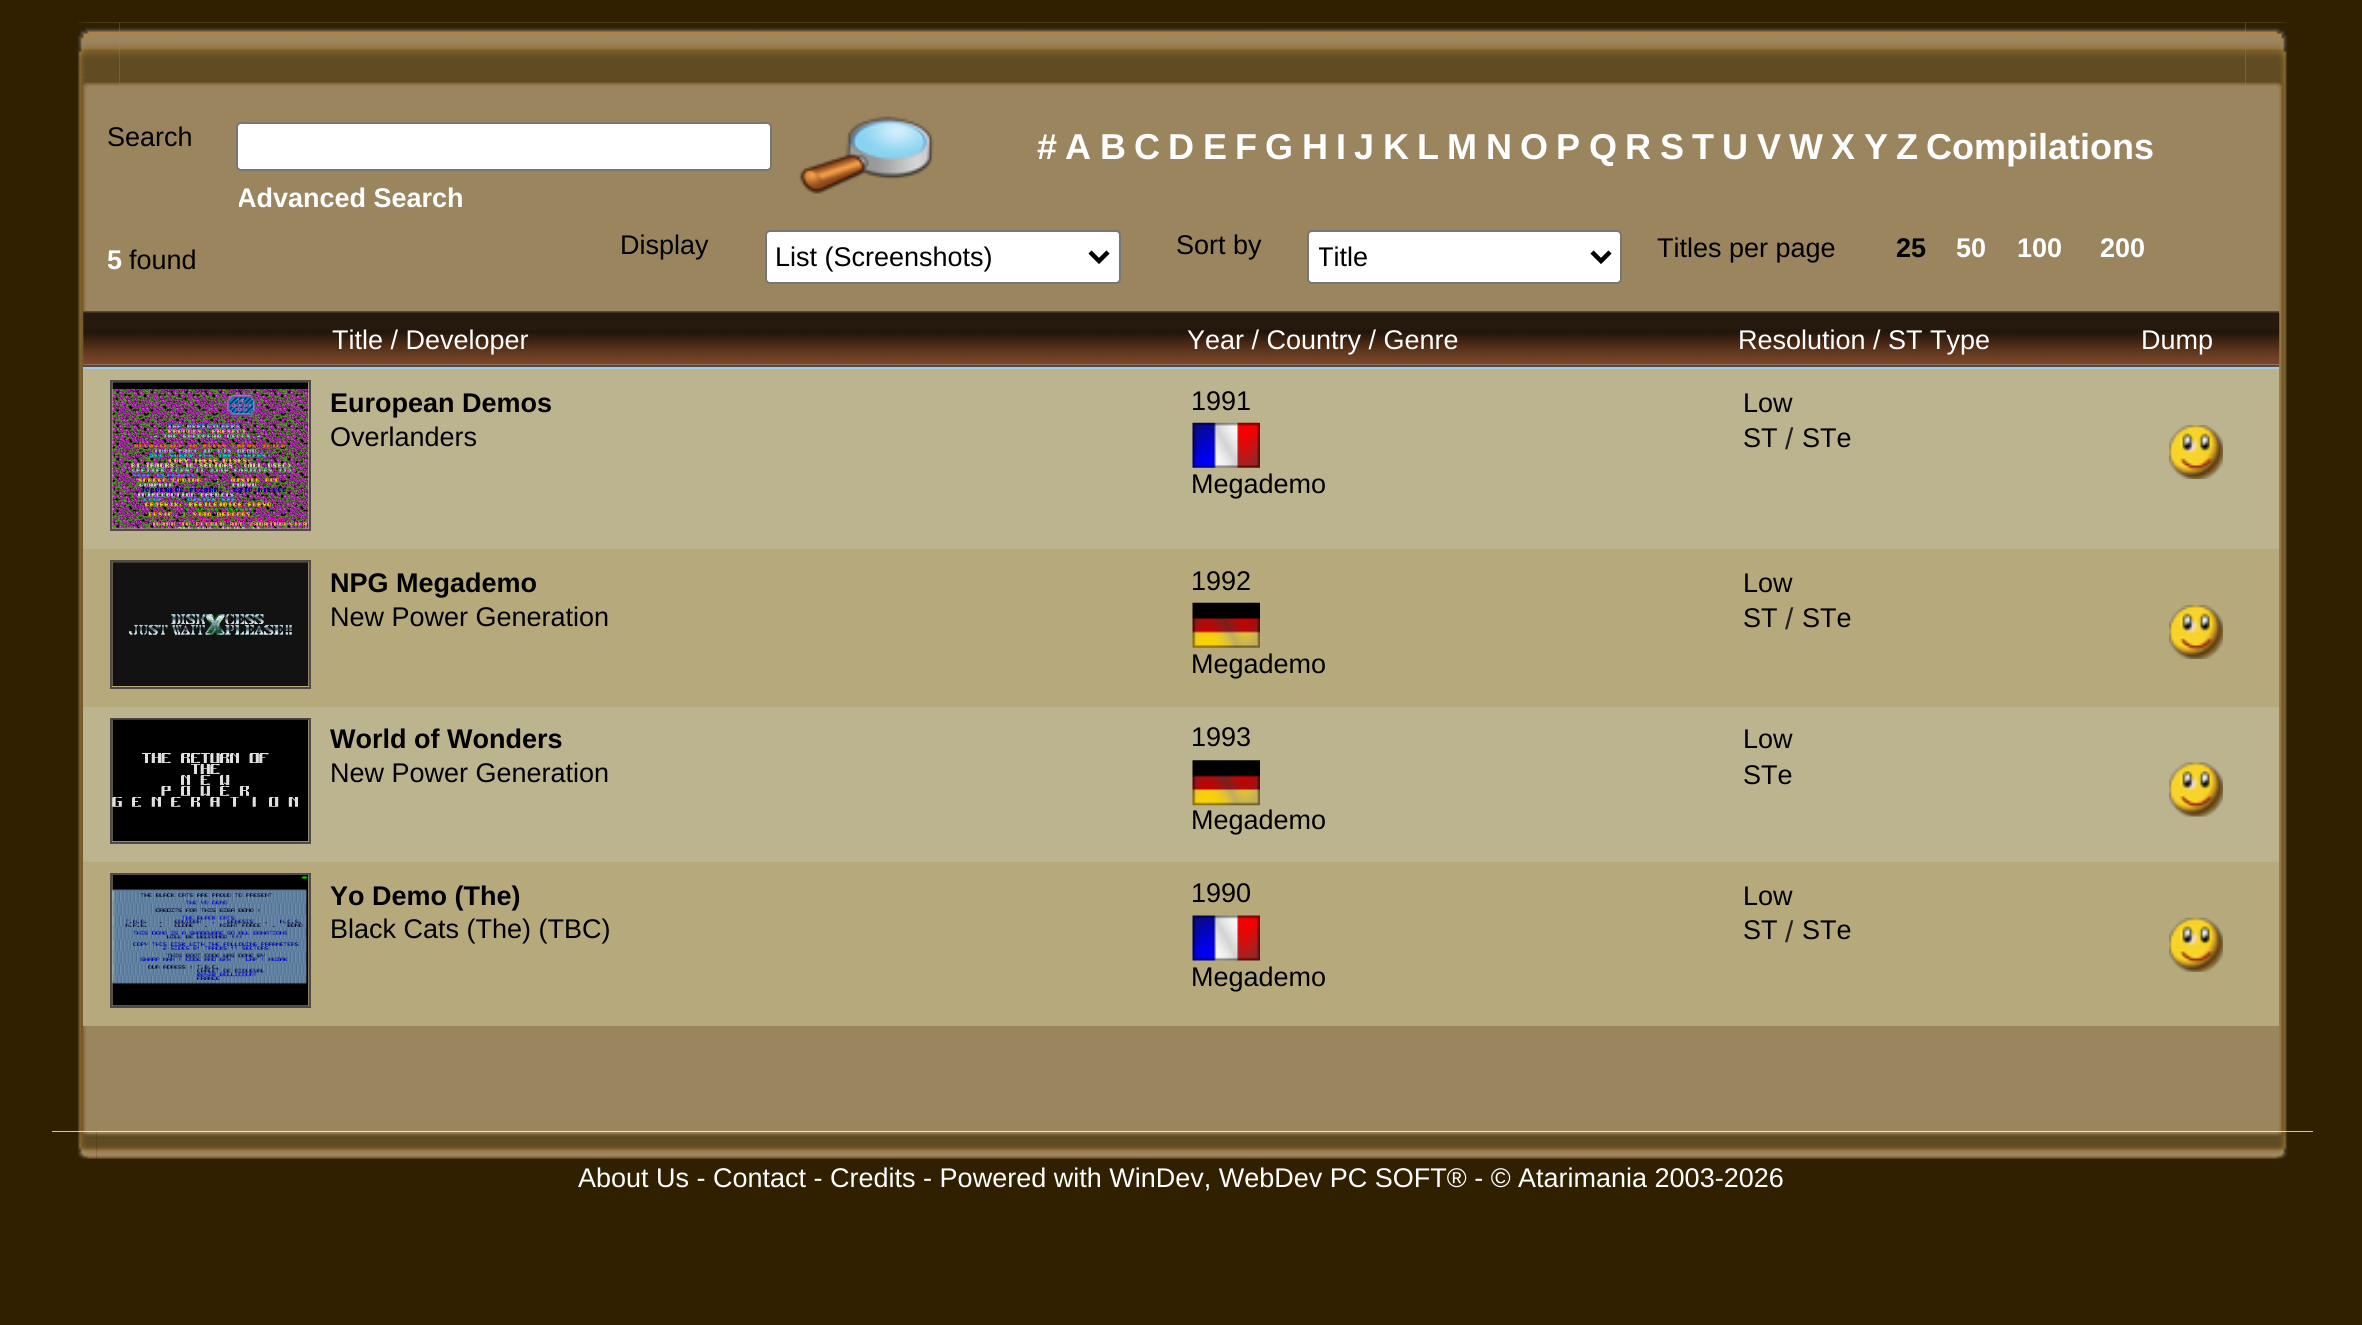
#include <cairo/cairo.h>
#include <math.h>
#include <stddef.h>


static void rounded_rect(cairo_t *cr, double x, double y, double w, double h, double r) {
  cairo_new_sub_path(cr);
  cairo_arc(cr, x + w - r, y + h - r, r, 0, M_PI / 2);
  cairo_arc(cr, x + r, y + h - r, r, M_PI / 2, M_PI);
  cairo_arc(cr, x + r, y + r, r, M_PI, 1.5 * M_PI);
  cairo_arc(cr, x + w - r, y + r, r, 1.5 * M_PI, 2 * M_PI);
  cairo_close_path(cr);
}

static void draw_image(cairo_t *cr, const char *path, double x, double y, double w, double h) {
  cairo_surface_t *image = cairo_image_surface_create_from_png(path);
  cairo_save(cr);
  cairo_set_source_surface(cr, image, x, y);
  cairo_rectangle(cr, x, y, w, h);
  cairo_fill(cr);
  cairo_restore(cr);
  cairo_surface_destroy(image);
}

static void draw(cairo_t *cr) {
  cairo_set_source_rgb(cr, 49 / 255.0, 32 / 255.0, 0);
  cairo_paint(cr);
  cairo_set_source_rgb(cr, 1, 1, 1);
  cairo_rectangle(cr, 52, 1131, 2261, 1);
  cairo_fill(cr);
  draw_image(cr, "images/1.png", 52, 22, 2261, 1110);
  draw_image(cr, "images/2.png", 76, 22, 44, 66);
  draw_image(cr, "images/4.png", 2245, 22, 44, 66);
  draw_image(cr, "images/3.png", 119, 22, 2127, 64);
  rounded_rect(cr, 237, 123, 534, 47, 4);
  cairo_fill_preserve(cr);
  cairo_set_source_rgb(cr, 118 / 255.0, 118 / 255.0, 118 / 255.0);
  cairo_stroke(cr);
  draw_image(cr, "images/5.png", 798, 116, 136, 78);
  cairo_set_source_rgb(cr, 1, 1, 1);
  rounded_rect(cr, 766, 231, 354, 52, 4);
  cairo_fill_preserve(cr);
  cairo_set_source_rgb(cr, 118 / 255.0, 118 / 255.0, 118 / 255.0);
  cairo_stroke(cr);
  cairo_new_path(cr);
  cairo_move_to(cr, 1090, 252);
  cairo_line_to(cr, 1099, 261);
  cairo_line_to(cr, 1108, 252);
  cairo_set_source_rgb(cr, 0, 0, 0);
  cairo_set_line_width(cr, 4.5);
  cairo_stroke(cr);
  cairo_set_source_rgb(cr, 1, 1, 1);
  rounded_rect(cr, 1308, 231, 313, 52, 4);
  cairo_fill_preserve(cr);
  cairo_set_source_rgb(cr, 118 / 255.0, 118 / 255.0, 118 / 255.0);
  cairo_set_line_width(cr, 2);
  cairo_stroke(cr);
  cairo_new_path(cr);
  cairo_move_to(cr, 1592, 252);
  cairo_line_to(cr, 1601, 261);
  cairo_line_to(cr, 1610, 252);
  cairo_set_source_rgb(cr, 0, 0, 0);
  cairo_set_line_width(cr, 4.5);
  cairo_stroke(cr);
  cairo_set_source_rgb(cr, 80 / 255.0, 74 / 255.0, 74 / 255.0);
  cairo_rectangle(cr, 83, 311, 2196, 2);
  cairo_fill(cr);
  cairo_rectangle(cr, 83, 365, 2196, 2);
  cairo_fill(cr);
  draw_image(cr, "images/6.png", 83, 312, 2197, 53);
  cairo_set_source_rgb(cr, 167 / 255.0, 201 / 255.0, 228 / 255.0);
  cairo_rectangle(cr, 83, 367, 2196, 2);
  cairo_fill(cr);
  cairo_set_source_rgb(cr, 188 / 255.0, 179 / 255.0, 143 / 255.0);
  cairo_rectangle(cr, 83, 369, 2196, 180);
  cairo_fill(cr);
  cairo_rectangle(cr, 111, 381, 199, 149);
  cairo_set_source_rgb(cr, 80 / 255.0, 74 / 255.0, 74 / 255.0);
  cairo_set_line_width(cr, 2);
  cairo_stroke(cr);
  draw_image(cr, "images/7.png", 112, 382, 197, 147);
  draw_image(cr, "images/8.png", 1192, 422, 68, 46);
  draw_image(cr, "images/9.png", 2169, 425, 54, 54);
  cairo_set_source_rgb(cr, 182 / 255.0, 170 / 255.0, 124 / 255.0);
  cairo_rectangle(cr, 83, 549, 2196, 158);
  cairo_fill(cr);
  cairo_rectangle(cr, 111, 561, 199, 127);
  cairo_set_source_rgb(cr, 80 / 255.0, 74 / 255.0, 74 / 255.0);
  cairo_stroke(cr);
  draw_image(cr, "images/10.png", 112, 562, 197, 124);
  draw_image(cr, "images/11.png", 1192, 602, 68, 46);
  draw_image(cr, "images/12.png", 2169, 605, 54, 54);
  cairo_set_source_rgb(cr, 188 / 255.0, 179 / 255.0, 143 / 255.0);
  cairo_rectangle(cr, 83, 707, 2196, 155);
  cairo_fill(cr);
  cairo_rectangle(cr, 111, 719, 199, 124);
  cairo_set_source_rgb(cr, 80 / 255.0, 74 / 255.0, 74 / 255.0);
  cairo_stroke(cr);
  draw_image(cr, "images/13.png", 112, 719, 197, 123);
  draw_image(cr, "images/14.png", 1192, 760, 68, 46);
  draw_image(cr, "images/15.png", 2169, 762, 54, 55);
  cairo_set_source_rgb(cr, 182 / 255.0, 170 / 255.0, 124 / 255.0);
  cairo_rectangle(cr, 83, 862, 2196, 164);
  cairo_fill(cr);
  cairo_rectangle(cr, 111, 874, 199, 133);
  cairo_set_source_rgb(cr, 80 / 255.0, 74 / 255.0, 74 / 255.0);
  cairo_stroke(cr);
  draw_image(cr, "images/16.png", 112, 875, 197, 131);
  draw_image(cr, "images/17.png", 1192, 915, 68, 46);
  draw_image(cr, "images/18.png", 2169, 917, 54, 55);
  draw_image(cr, "images/19.png", 76, 1132, 21, 27);
  draw_image(cr, "images/20.png", 2268, 1132, 21, 27);
  draw_image(cr, "images/21.png", 96, 1132, 2172, 27);
  cairo_select_font_face(cr, "Liberation Sans", CAIRO_FONT_SLANT_NORMAL, CAIRO_FONT_WEIGHT_NORMAL);
  cairo_set_font_size(cr, 27);
  cairo_set_source_rgb(cr, 0, 0, 0);
  cairo_move_to(cr, 107, 146);
  cairo_show_text(cr, "Search");
  cairo_select_font_face(cr, "Liberation Sans", CAIRO_FONT_SLANT_NORMAL, CAIRO_FONT_WEIGHT_BOLD);
  cairo_set_font_size(cr, 36);
  cairo_set_source_rgb(cr, 1, 1, 1);
  cairo_move_to(cr, 1037, 159);
  cairo_show_text(cr, "#");
  cairo_move_to(cr, 1065, 159);
  cairo_show_text(cr, "A");
  cairo_move_to(cr, 1100, 159);
  cairo_show_text(cr, "B");
  cairo_move_to(cr, 1134, 159);
  cairo_show_text(cr, "C");
  cairo_move_to(cr, 1168, 159);
  cairo_show_text(cr, "D");
  cairo_move_to(cr, 1203, 159);
  cairo_show_text(cr, "E");
  cairo_move_to(cr, 1235, 159);
  cairo_show_text(cr, "F");
  cairo_move_to(cr, 1265, 159);
  cairo_show_text(cr, "G");
  cairo_move_to(cr, 1302, 159);
  cairo_show_text(cr, "H");
  cairo_move_to(cr, 1336, 159);
  cairo_show_text(cr, "I");
  cairo_move_to(cr, 1354, 159);
  cairo_show_text(cr, "J");
  cairo_move_to(cr, 1383, 159);
  cairo_show_text(cr, "K");
  cairo_move_to(cr, 1417, 159);
  cairo_show_text(cr, "L");
  cairo_move_to(cr, 1447, 159);
  cairo_show_text(cr, "M");
  cairo_move_to(cr, 1486, 159);
  cairo_show_text(cr, "N");
  cairo_move_to(cr, 1520, 159);
  cairo_show_text(cr, "O");
  cairo_move_to(cr, 1556, 159);
  cairo_show_text(cr, "P");
  cairo_move_to(cr, 1589, 159);
  cairo_show_text(cr, "Q");
  cairo_move_to(cr, 1625, 159);
  cairo_show_text(cr, "R");
  cairo_move_to(cr, 1660, 159);
  cairo_show_text(cr, "S");
  cairo_move_to(cr, 1692, 159);
  cairo_show_text(cr, "T");
  cairo_move_to(cr, 1722, 159);
  cairo_show_text(cr, "U");
  cairo_move_to(cr, 1757, 159);
  cairo_show_text(cr, "V");
  cairo_move_to(cr, 1789, 159);
  cairo_show_text(cr, "W");
  cairo_move_to(cr, 1831, 159);
  cairo_show_text(cr, "X");
  cairo_move_to(cr, 1864, 159);
  cairo_show_text(cr, "Y");
  cairo_move_to(cr, 1896, 159);
  cairo_show_text(cr, "Z");
  cairo_move_to(cr, 1926, 159);
  cairo_show_text(cr, "Compilations");
  cairo_set_font_size(cr, 27);
  cairo_move_to(cr, 107, 269);
  cairo_show_text(cr, "5");
  cairo_select_font_face(cr, "Liberation Sans", CAIRO_FONT_SLANT_NORMAL, CAIRO_FONT_WEIGHT_NORMAL);
  cairo_set_source_rgb(cr, 0, 0, 0);
  cairo_move_to(cr, 129, 269);
  cairo_show_text(cr, "found");
  cairo_move_to(cr, 620, 254);
  cairo_show_text(cr, "Display");
  cairo_move_to(cr, 775, 266);
  cairo_show_text(cr, "List (Screenshots)");
  cairo_move_to(cr, 1176, 254);
  cairo_show_text(cr, "Sort by");
  cairo_save(cr);
  cairo_rectangle(cr, 1319, 239, 265, 36);
  cairo_clip(cr);
  cairo_move_to(cr, 1317, 266);
  cairo_show_text(cr, "Title");
  cairo_restore(cr);
  cairo_move_to(cr, 1657, 257);
  cairo_show_text(cr, "Titles per page");
  cairo_select_font_face(cr, "Liberation Sans", CAIRO_FONT_SLANT_NORMAL, CAIRO_FONT_WEIGHT_BOLD);
  cairo_move_to(cr, 1896, 257);
  cairo_show_text(cr, "25");
  cairo_set_source_rgb(cr, 1, 1, 1);
  cairo_move_to(cr, 1956, 257);
  cairo_show_text(cr, "50");
  cairo_move_to(cr, 2017, 257);
  cairo_show_text(cr, "100");
  cairo_move_to(cr, 2100, 257);
  cairo_show_text(cr, "200");
  cairo_save(cr);
  cairo_rectangle(cr, 239, 182, 447, 45);
  cairo_clip(cr);
  cairo_move_to(cr, 237, 207);
  cairo_show_text(cr, "Advanced Search");
  cairo_restore(cr);
  cairo_select_font_face(cr, "Liberation Sans", CAIRO_FONT_SLANT_NORMAL, CAIRO_FONT_WEIGHT_NORMAL);
  cairo_move_to(cr, 332, 349);
  cairo_show_text(cr, "Title / Developer");
  cairo_move_to(cr, 1187, 349);
  cairo_show_text(cr, "Year / Country / Genre");
  cairo_move_to(cr, 1738, 349);
  cairo_show_text(cr, "Resolution / ST Type");
  cairo_move_to(cr, 2141, 349);
  cairo_show_text(cr, "Dump");
  cairo_select_font_face(cr, "Liberation Sans", CAIRO_FONT_SLANT_NORMAL, CAIRO_FONT_WEIGHT_BOLD);
  cairo_set_source_rgb(cr, 0, 0, 0);
  cairo_move_to(cr, 330, 412);
  cairo_show_text(cr, "European Demos");
  cairo_select_font_face(cr, "Liberation Sans", CAIRO_FONT_SLANT_NORMAL, CAIRO_FONT_WEIGHT_NORMAL);
  cairo_move_to(cr, 330, 446);
  cairo_show_text(cr, "Overlanders");
  cairo_move_to(cr, 1191, 410);
  cairo_show_text(cr, "1991");
  cairo_move_to(cr, 1191, 493);
  cairo_show_text(cr, "Megademo");
  cairo_move_to(cr, 1743, 412);
  cairo_show_text(cr, "Low");
  cairo_move_to(cr, 1743, 447);
  cairo_show_text(cr, "ST");
  cairo_set_font_size(cr, 30);
  cairo_set_source_rgb(cr, 34 / 255.0, 34 / 255.0, 34 / 255.0);
  cairo_move_to(cr, 1785, 449);
  cairo_show_text(cr, "/");
  cairo_set_font_size(cr, 27);
  cairo_set_source_rgb(cr, 0, 0, 0);
  cairo_move_to(cr, 1802, 447);
  cairo_show_text(cr, "STe");
  cairo_select_font_face(cr, "Liberation Sans", CAIRO_FONT_SLANT_NORMAL, CAIRO_FONT_WEIGHT_BOLD);
  cairo_move_to(cr, 330, 592);
  cairo_show_text(cr, "NPG Megademo");
  cairo_select_font_face(cr, "Liberation Sans", CAIRO_FONT_SLANT_NORMAL, CAIRO_FONT_WEIGHT_NORMAL);
  cairo_move_to(cr, 330, 626);
  cairo_show_text(cr, "New Power Generation");
  cairo_move_to(cr, 1191, 590);
  cairo_show_text(cr, "1992");
  cairo_move_to(cr, 1191, 673);
  cairo_show_text(cr, "Megademo");
  cairo_move_to(cr, 1743, 592);
  cairo_show_text(cr, "Low");
  cairo_move_to(cr, 1743, 627);
  cairo_show_text(cr, "ST");
  cairo_set_font_size(cr, 30);
  cairo_set_source_rgb(cr, 34 / 255.0, 34 / 255.0, 34 / 255.0);
  cairo_move_to(cr, 1785, 629);
  cairo_show_text(cr, "/");
  cairo_set_font_size(cr, 27);
  cairo_set_source_rgb(cr, 0, 0, 0);
  cairo_move_to(cr, 1802, 627);
  cairo_show_text(cr, "STe");
  cairo_select_font_face(cr, "Liberation Sans", CAIRO_FONT_SLANT_NORMAL, CAIRO_FONT_WEIGHT_BOLD);
  cairo_move_to(cr, 330, 748);
  cairo_show_text(cr, "World of Wonders");
  cairo_select_font_face(cr, "Liberation Sans", CAIRO_FONT_SLANT_NORMAL, CAIRO_FONT_WEIGHT_NORMAL);
  cairo_move_to(cr, 330, 782);
  cairo_show_text(cr, "New Power Generation");
  cairo_move_to(cr, 1191, 746);
  cairo_show_text(cr, "1993");
  cairo_move_to(cr, 1191, 829);
  cairo_show_text(cr, "Megademo");
  cairo_move_to(cr, 1743, 748);
  cairo_show_text(cr, "Low");
  cairo_move_to(cr, 1743, 784);
  cairo_show_text(cr, "STe");
  cairo_select_font_face(cr, "Liberation Sans", CAIRO_FONT_SLANT_NORMAL, CAIRO_FONT_WEIGHT_BOLD);
  cairo_move_to(cr, 330, 905);
  cairo_show_text(cr, "Yo Demo (The)");
  cairo_select_font_face(cr, "Liberation Sans", CAIRO_FONT_SLANT_NORMAL, CAIRO_FONT_WEIGHT_NORMAL);
  cairo_move_to(cr, 330, 938);
  cairo_show_text(cr, "Black Cats (The) (TBC)");
  cairo_move_to(cr, 1191, 902);
  cairo_show_text(cr, "1990");
  cairo_move_to(cr, 1191, 986);
  cairo_show_text(cr, "Megademo");
  cairo_move_to(cr, 1743, 905);
  cairo_show_text(cr, "Low");
  cairo_move_to(cr, 1743, 939);
  cairo_show_text(cr, "ST");
  cairo_set_font_size(cr, 30);
  cairo_set_source_rgb(cr, 34 / 255.0, 34 / 255.0, 34 / 255.0);
  cairo_move_to(cr, 1785, 942);
  cairo_show_text(cr, "/");
  cairo_set_font_size(cr, 27);
  cairo_set_source_rgb(cr, 0, 0, 0);
  cairo_move_to(cr, 1802, 939);
  cairo_show_text(cr, "STe");
  cairo_set_source_rgb(cr, 1, 1, 1);
  cairo_move_to(cr, 578, 1187);
  cairo_show_text(cr, "About Us - Contact - Credits - Powered with WinDev, WebDev PC SOFT® - © Atarimania 2003-2026");
}

int main(void) {
  cairo_surface_t *surface = cairo_image_surface_create(CAIRO_FORMAT_RGB24, 2362, 1325);
  cairo_t *cr = cairo_create(surface);
  cairo_font_options_t *options = cairo_font_options_create();
  cairo_font_options_set_hint_metrics(options, CAIRO_HINT_METRICS_OFF);
  cairo_font_options_set_hint_style(options, CAIRO_HINT_STYLE_NONE);
  cairo_set_font_options(cr, options);
  cairo_set_miter_limit(cr, 4);
  draw(cr);
  cairo_surface_write_to_png(surface, "out.png");
  cairo_font_options_destroy(options);
  cairo_destroy(cr);
  cairo_surface_destroy(surface);
  return 0;
}
